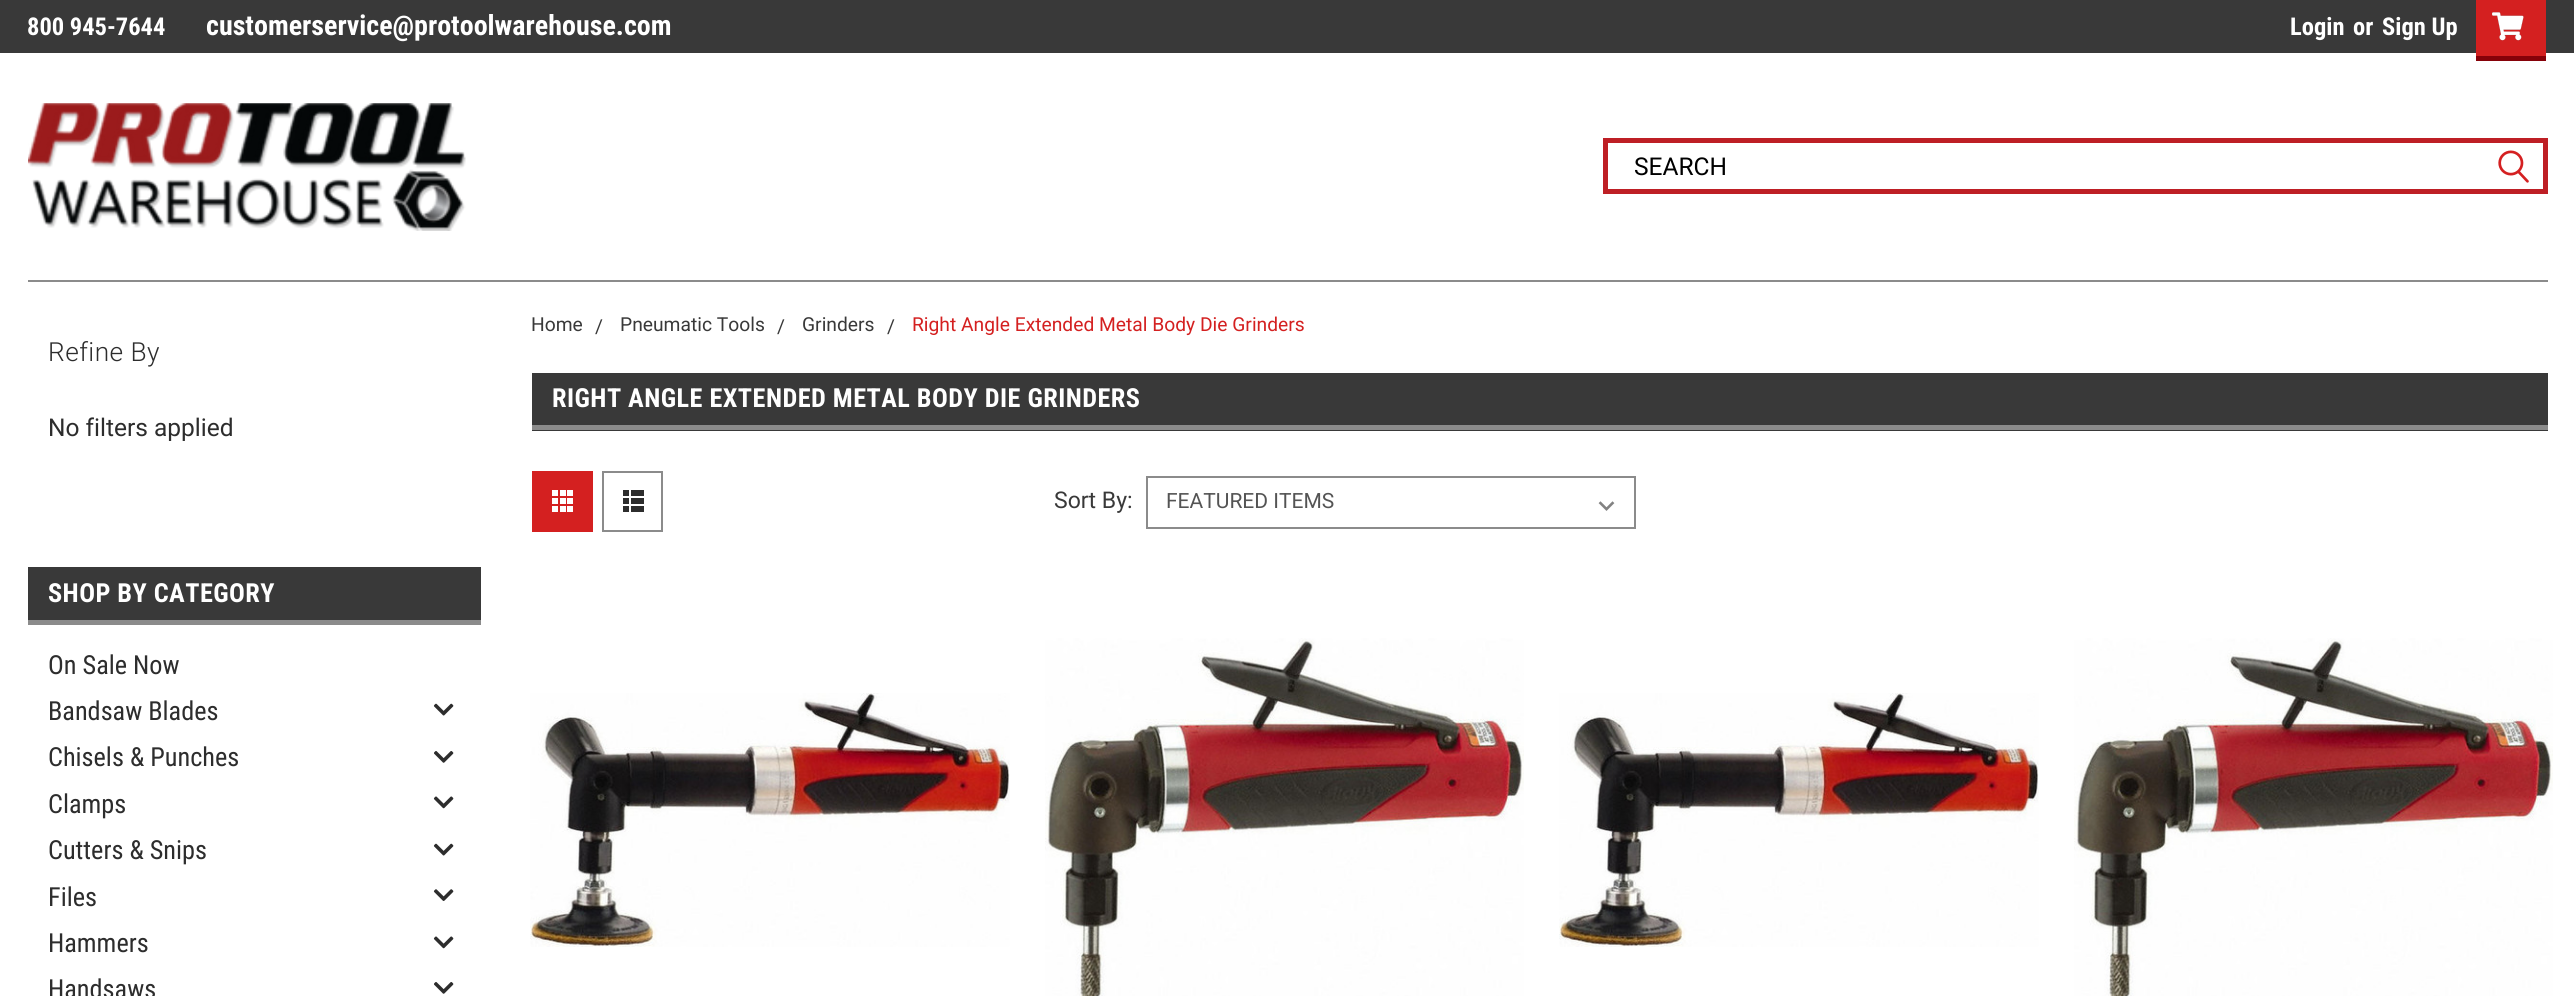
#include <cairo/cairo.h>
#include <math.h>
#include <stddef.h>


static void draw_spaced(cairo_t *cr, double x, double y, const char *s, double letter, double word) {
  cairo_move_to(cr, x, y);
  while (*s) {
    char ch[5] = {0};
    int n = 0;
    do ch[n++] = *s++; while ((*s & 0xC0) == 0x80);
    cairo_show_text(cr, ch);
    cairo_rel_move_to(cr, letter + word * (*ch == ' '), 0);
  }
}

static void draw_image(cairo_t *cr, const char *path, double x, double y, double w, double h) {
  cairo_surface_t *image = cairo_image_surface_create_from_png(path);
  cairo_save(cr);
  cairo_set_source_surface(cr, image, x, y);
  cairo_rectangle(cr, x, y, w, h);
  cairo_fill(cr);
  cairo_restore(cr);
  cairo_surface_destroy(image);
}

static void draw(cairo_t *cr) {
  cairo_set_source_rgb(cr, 1, 1, 1);
  cairo_paint(cr);
  cairo_set_source_rgb(cr, 57 / 255.0, 57 / 255.0, 57 / 255.0);
  cairo_rectangle(cr, 0, 0, 2574, 53);
  cairo_fill(cr);
  cairo_set_source_rgb(cr, 212 / 255.0, 32 / 255.0, 32 / 255.0);
  cairo_rectangle(cr, 2476, 0, 70, 56);
  cairo_fill(cr);
  cairo_set_source_rgb(cr, 134 / 255.0, 1 / 255.0, 9 / 255.0);
  cairo_rectangle(cr, 2476, 56, 70, 5);
  cairo_fill(cr);
  draw_image(cr, "images/1.png", 2492, 12, 32, 29);
  draw_image(cr, "images/2.png", 28, 103, 438, 128);
  cairo_rectangle(cr, 1605.5, 140.5, 940, 51);
  cairo_set_source_rgb(cr, 190 / 255.0, 31 / 255.0, 37 / 255.0);
  cairo_set_line_width(cr, 5);
  cairo_stroke(cr);
  draw_image(cr, "images/3.png", 2498, 150, 31, 33);
  cairo_set_source_rgb(cr, 139 / 255.0, 139 / 255.0, 139 / 255.0);
  cairo_rectangle(cr, 28, 280, 2520, 2);
  cairo_fill(cr);
  cairo_set_source_rgb(cr, 57 / 255.0, 57 / 255.0, 57 / 255.0);
  cairo_rectangle(cr, 28, 567, 453, 53);
  cairo_fill(cr);
  cairo_set_source_rgb(cr, 139 / 255.0, 139 / 255.0, 139 / 255.0);
  cairo_rectangle(cr, 28, 620, 453, 5);
  cairo_fill(cr);
  draw_image(cr, "images/4.png", 433, 703, 21, 13);
  draw_image(cr, "images/5.png", 434, 751, 20, 12);
  draw_image(cr, "images/6.png", 433, 796, 21, 13);
  draw_image(cr, "images/4.png", 433, 843, 21, 13);
  draw_image(cr, "images/7.png", 433, 889, 21, 12);
  draw_image(cr, "images/6.png", 433, 936, 21, 13);
  draw_image(cr, "images/5.png", 434, 982, 20, 12);
  cairo_set_source_rgb(cr, 57 / 255.0, 57 / 255.0, 57 / 255.0);
  cairo_rectangle(cr, 532, 373, 2016, 58);
  cairo_fill(cr);
  cairo_set_source_rgb(cr, 139 / 255.0, 139 / 255.0, 139 / 255.0);
  cairo_rectangle(cr, 532, 425, 2016, 5);
  cairo_fill(cr);
  cairo_set_source_rgb(cr, 212 / 255.0, 32 / 255.0, 32 / 255.0);
  cairo_rectangle(cr, 532, 471, 61, 61);
  cairo_fill(cr);
  draw_image(cr, "images/8.png", 552, 490, 21, 22);
  cairo_rectangle(cr, 603, 472, 59, 59);
  cairo_set_source_rgb(cr, 139 / 255.0, 139 / 255.0, 139 / 255.0);
  cairo_set_line_width(cr, 2);
  cairo_stroke(cr);
  draw_image(cr, "images/9.png", 623, 490, 21, 22);
  draw_image(cr, "images/10.png", 1598, 501, 17, 10);
  cairo_rectangle(cr, 1147, 477, 488, 51);
  cairo_stroke(cr);
  draw_image(cr, "images/11.png", 530, 693, 480, 254);
  draw_image(cr, "images/12.png", 1045, 638, 479, 358);
  draw_image(cr, "images/11.png", 1559, 693, 480, 254);
  draw_image(cr, "images/12.png", 2074, 638, 479, 358);
  cairo_select_font_face(cr, "Roboto Condensed", CAIRO_FONT_SLANT_NORMAL, CAIRO_FONT_WEIGHT_BOLD);
  cairo_set_font_size(cr, 24.5);
  cairo_set_source_rgb(cr, 1, 1, 1);
  cairo_move_to(cr, 27, 35);
  cairo_show_text(cr, "800 945-7644");
  cairo_set_font_size(cr, 28);
  cairo_move_to(cr, 206, 35);
  cairo_show_text(cr, "customerservice@protoolwarehouse.com");
  cairo_set_font_size(cr, 24.5);
  cairo_move_to(cr, 2290, 35);
  cairo_show_text(cr, "Login");
  cairo_move_to(cr, 2353, 35);
  cairo_show_text(cr, "or");
  cairo_move_to(cr, 2382, 35);
  cairo_show_text(cr, "Sign Up");
  cairo_select_font_face(cr, "Roboto", CAIRO_FONT_SLANT_NORMAL, CAIRO_FONT_WEIGHT_NORMAL);
  cairo_set_source_rgb(cr, 0, 0, 0);
  cairo_move_to(cr, 1634, 175);
  cairo_show_text(cr, "SEARCH");
  cairo_select_font_face(cr, "Roboto Light", CAIRO_FONT_SLANT_NORMAL, CAIRO_FONT_WEIGHT_NORMAL);
  cairo_set_font_size(cr, 26.25);
  cairo_set_source_rgb(cr, 45 / 255.0, 45 / 255.0, 45 / 255.0);
  draw_spaced(cr, 48, 361, "Refine By", 0.45, 0);
  cairo_select_font_face(cr, "Roboto", CAIRO_FONT_SLANT_NORMAL, CAIRO_FONT_WEIGHT_NORMAL);
  cairo_set_font_size(cr, 24.5);
  cairo_move_to(cr, 48, 436);
  cairo_show_text(cr, "No filters applied");
  cairo_select_font_face(cr, "Roboto Condensed", CAIRO_FONT_SLANT_NORMAL, CAIRO_FONT_WEIGHT_BOLD);
  cairo_set_font_size(cr, 26.25);
  cairo_set_source_rgb(cr, 1, 1, 1);
  draw_spaced(cr, 48, 602, "SHOP BY CATEGORY", 0.45, 0);
  cairo_select_font_face(cr, "Roboto Condensed", CAIRO_FONT_SLANT_NORMAL, CAIRO_FONT_WEIGHT_NORMAL);
  cairo_set_source_rgb(cr, 45 / 255.0, 45 / 255.0, 45 / 255.0);
  cairo_move_to(cr, 48, 674);
  cairo_show_text(cr, "On Sale Now");
  cairo_move_to(cr, 48, 720);
  cairo_show_text(cr, "Bandsaw Blades");
  cairo_move_to(cr, 48, 766);
  cairo_show_text(cr, "Chisels & Punches");
  cairo_move_to(cr, 48, 813);
  cairo_show_text(cr, "Clamps");
  cairo_move_to(cr, 48, 859);
  cairo_show_text(cr, "Cutters & Snips");
  cairo_move_to(cr, 48, 906);
  cairo_show_text(cr, "Files");
  cairo_move_to(cr, 48, 952);
  cairo_show_text(cr, "Hammers");
  cairo_move_to(cr, 48, 998);
  cairo_show_text(cr, "Handsaws");
  cairo_select_font_face(cr, "Roboto", CAIRO_FONT_SLANT_NORMAL, CAIRO_FONT_WEIGHT_NORMAL);
  cairo_set_font_size(cr, 19.25);
  cairo_set_source_rgb(cr, 57 / 255.0, 57 / 255.0, 57 / 255.0);
  cairo_move_to(cr, 531, 331);
  cairo_show_text(cr, "Home");
  cairo_move_to(cr, 595, 333);
  cairo_show_text(cr, "/");
  cairo_move_to(cr, 620, 331);
  cairo_show_text(cr, "Pneumatic Tools");
  cairo_move_to(cr, 777, 333);
  cairo_show_text(cr, "/");
  cairo_move_to(cr, 802, 331);
  cairo_show_text(cr, "Grinders");
  cairo_move_to(cr, 887, 333);
  cairo_show_text(cr, "/");
  cairo_set_source_rgb(cr, 212 / 255.0, 32 / 255.0, 32 / 255.0);
  cairo_move_to(cr, 912, 331);
  cairo_show_text(cr, "Right Angle Extended Metal Body Die Grinders");
  cairo_select_font_face(cr, "Roboto Condensed", CAIRO_FONT_SLANT_NORMAL, CAIRO_FONT_WEIGHT_BOLD);
  cairo_set_font_size(cr, 26.25);
  cairo_set_source_rgb(cr, 1, 1, 1);
  draw_spaced(cr, 552, 407, "RIGHT ANGLE EXTENDED METAL BODY DIE GRINDERS", 0.45, 0);
  cairo_select_font_face(cr, "Roboto", CAIRO_FONT_SLANT_NORMAL, CAIRO_FONT_WEIGHT_NORMAL);
  cairo_set_font_size(cr, 23);
  cairo_set_source_rgb(cr, 57 / 255.0, 57 / 255.0, 57 / 255.0);
  cairo_move_to(cr, 1054, 508);
  cairo_show_text(cr, "Sort By:");
  cairo_set_font_size(cr, 21);
  cairo_set_source_rgb(cr, 84 / 255.0, 84 / 255.0, 84 / 255.0);
  cairo_move_to(cr, 1166, 508);
  cairo_show_text(cr, "FEATURED ITEMS");
}

int main(void) {
  cairo_surface_t *surface = cairo_image_surface_create(CAIRO_FORMAT_RGB24, 2574, 996);
  cairo_t *cr = cairo_create(surface);
  cairo_font_options_t *options = cairo_font_options_create();
  cairo_font_options_set_hint_metrics(options, CAIRO_HINT_METRICS_OFF);
  cairo_font_options_set_hint_style(options, CAIRO_HINT_STYLE_NONE);
  cairo_set_font_options(cr, options);
  cairo_set_miter_limit(cr, 4);
  draw(cr);
  cairo_surface_write_to_png(surface, "out.png");
  cairo_font_options_destroy(options);
  cairo_destroy(cr);
  cairo_surface_destroy(surface);
  return 0;
}
